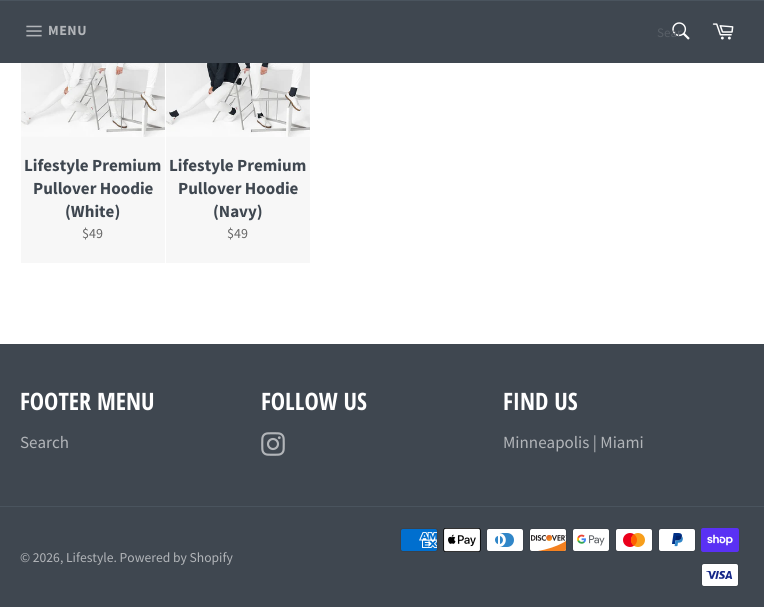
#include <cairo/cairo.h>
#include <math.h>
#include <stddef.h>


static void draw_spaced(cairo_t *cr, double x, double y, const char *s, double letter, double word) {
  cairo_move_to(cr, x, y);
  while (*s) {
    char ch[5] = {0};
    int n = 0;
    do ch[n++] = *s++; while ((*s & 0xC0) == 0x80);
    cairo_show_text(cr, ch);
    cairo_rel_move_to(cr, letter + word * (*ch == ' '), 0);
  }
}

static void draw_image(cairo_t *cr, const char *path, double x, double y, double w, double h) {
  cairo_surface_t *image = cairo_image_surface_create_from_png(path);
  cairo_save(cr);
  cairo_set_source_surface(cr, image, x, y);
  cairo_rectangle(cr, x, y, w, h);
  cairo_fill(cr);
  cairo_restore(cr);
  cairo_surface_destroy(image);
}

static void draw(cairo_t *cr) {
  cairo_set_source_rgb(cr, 1, 1, 1);
  cairo_paint(cr);
  cairo_set_source_rgb(cr, 63 / 255.0, 71 / 255.0, 80 / 255.0);
  cairo_rectangle(cr, 0, 1, 764, 62);
  cairo_fill(cr);
  cairo_set_source_rgb(cr, 74 / 255.0, 84 / 255.0, 94 / 255.0);
  cairo_rectangle(cr, 0, 0, 764, 1);
  cairo_fill(cr);
  draw_image(cr, "images/1.png", 26, 25, 16, 12);
  draw_image(cr, "images/2.png", 672, 22, 18, 18);
  draw_image(cr, "images/3.png", 712, 23, 22, 17);
  cairo_set_source_rgb(cr, 247 / 255.0, 247 / 255.0, 247 / 255.0);
  cairo_rectangle(cr, 21, 137, 144, 126);
  cairo_fill(cr);
  draw_image(cr, "images/4.png", 21, 63, 144, 74);
  cairo_rectangle(cr, 166, 137, 144, 126);
  cairo_fill(cr);
  draw_image(cr, "images/5.png", 166, 63, 144, 74);
  cairo_set_source_rgb(cr, 63 / 255.0, 71 / 255.0, 80 / 255.0);
  cairo_rectangle(cr, 0, 344, 764, 263);
  cairo_fill(cr);
  draw_image(cr, "images/6.png", 261, 432, 24, 24);
  cairo_set_source_rgb(cr, 74 / 255.0, 84 / 255.0, 94 / 255.0);
  cairo_rectangle(cr, 0, 506, 764, 1);
  cairo_fill(cr);
  draw_image(cr, "images/7.png", 400, 528, 38, 24);
  draw_image(cr, "images/8.png", 443, 528, 38, 24);
  draw_image(cr, "images/9.png", 486, 528, 38, 24);
  draw_image(cr, "images/10.png", 529, 528, 38, 24);
  draw_image(cr, "images/11.png", 572, 528, 38, 24);
  draw_image(cr, "images/12.png", 615, 528, 38, 24);
  draw_image(cr, "images/13.png", 658, 528, 38, 24);
  draw_image(cr, "images/14.png", 701, 528, 38, 24);
  draw_image(cr, "images/15.png", 701, 563, 38, 24);
  cairo_select_font_face(cr, "Source Sans Pro", CAIRO_FONT_SLANT_NORMAL, CAIRO_FONT_WEIGHT_BOLD);
  cairo_set_font_size(cr, 14);
  cairo_set_source_rgb(cr, 178 / 255.0, 181 / 255.0, 185 / 255.0);
  draw_spaced(cr, 48, 35, "MENU", 0.5, 0);
  cairo_select_font_face(cr, "Source Sans Pro", CAIRO_FONT_SLANT_NORMAL, CAIRO_FONT_WEIGHT_NORMAL);
  cairo_set_font_size(cr, 13);
  cairo_set_source_rgb(cr, 88 / 255.0, 95 / 255.0, 103 / 255.0);
  cairo_move_to(cr, 657, 37);
  cairo_show_text(cr, "Sear");
  cairo_select_font_face(cr, "Source Sans Pro", CAIRO_FONT_SLANT_NORMAL, CAIRO_FONT_WEIGHT_BOLD);
  cairo_set_font_size(cr, 17);
  cairo_set_source_rgb(cr, 63 / 255.0, 71 / 255.0, 80 / 255.0);
  cairo_move_to(cr, 24, 171);
  cairo_show_text(cr, "Lifestyle Premium");
  cairo_move_to(cr, 33, 194);
  cairo_show_text(cr, "Pullover Hoodie");
  cairo_move_to(cr, 65, 217);
  cairo_show_text(cr, "(White)");
  cairo_select_font_face(cr, "Source Sans Pro", CAIRO_FONT_SLANT_NORMAL, CAIRO_FONT_WEIGHT_NORMAL);
  cairo_set_font_size(cr, 14);
  cairo_set_source_rgb(cr, 102 / 255.0, 102 / 255.0, 102 / 255.0);
  cairo_move_to(cr, 82, 238);
  cairo_show_text(cr, "$49");
  cairo_select_font_face(cr, "Source Sans Pro", CAIRO_FONT_SLANT_NORMAL, CAIRO_FONT_WEIGHT_BOLD);
  cairo_set_font_size(cr, 17);
  cairo_set_source_rgb(cr, 63 / 255.0, 71 / 255.0, 80 / 255.0);
  cairo_move_to(cr, 169, 171);
  cairo_show_text(cr, "Lifestyle Premium");
  cairo_move_to(cr, 178, 194);
  cairo_show_text(cr, "Pullover Hoodie");
  cairo_move_to(cr, 213, 217);
  cairo_show_text(cr, "(Navy)");
  cairo_select_font_face(cr, "Source Sans Pro", CAIRO_FONT_SLANT_NORMAL, CAIRO_FONT_WEIGHT_NORMAL);
  cairo_set_font_size(cr, 14);
  cairo_set_source_rgb(cr, 102 / 255.0, 102 / 255.0, 102 / 255.0);
  cairo_move_to(cr, 227, 238);
  cairo_show_text(cr, "$49");
  cairo_select_font_face(cr, "Open Sans Condensed", CAIRO_FONT_SLANT_NORMAL, CAIRO_FONT_WEIGHT_BOLD);
  cairo_set_font_size(cr, 24);
  cairo_set_source_rgb(cr, 1, 1, 1);
  cairo_move_to(cr, 20, 410);
  cairo_show_text(cr, "FOOTER MENU");
  cairo_select_font_face(cr, "Source Sans Pro", CAIRO_FONT_SLANT_NORMAL, CAIRO_FONT_WEIGHT_NORMAL);
  cairo_set_font_size(cr, 17);
  cairo_set_source_rgb(cr, 178 / 255.0, 181 / 255.0, 185 / 255.0);
  cairo_move_to(cr, 20, 448);
  cairo_show_text(cr, "Search");
  cairo_select_font_face(cr, "Open Sans Condensed", CAIRO_FONT_SLANT_NORMAL, CAIRO_FONT_WEIGHT_BOLD);
  cairo_set_font_size(cr, 24);
  cairo_set_source_rgb(cr, 1, 1, 1);
  cairo_move_to(cr, 261, 410);
  cairo_show_text(cr, "FOLLOW US");
  cairo_move_to(cr, 503, 410);
  cairo_show_text(cr, "FIND US");
  cairo_select_font_face(cr, "Source Sans Pro", CAIRO_FONT_SLANT_NORMAL, CAIRO_FONT_WEIGHT_NORMAL);
  cairo_set_font_size(cr, 17);
  cairo_set_source_rgb(cr, 178 / 255.0, 181 / 255.0, 185 / 255.0);
  cairo_move_to(cr, 503, 448);
  cairo_show_text(cr, "Minneapolis | Miami");
  cairo_set_font_size(cr, 13.6);
  cairo_move_to(cr, 20, 562);
  cairo_show_text(cr, "© 2026, Lifestyle. Powered by Shopify");
}

int main(void) {
  cairo_surface_t *surface = cairo_image_surface_create(CAIRO_FORMAT_RGB24, 764, 607);
  cairo_t *cr = cairo_create(surface);
  cairo_font_options_t *options = cairo_font_options_create();
  cairo_font_options_set_hint_metrics(options, CAIRO_HINT_METRICS_OFF);
  cairo_font_options_set_hint_style(options, CAIRO_HINT_STYLE_NONE);
  cairo_set_font_options(cr, options);
  cairo_set_miter_limit(cr, 4);
  draw(cr);
  cairo_surface_write_to_png(surface, "out.png");
  cairo_font_options_destroy(options);
  cairo_destroy(cr);
  cairo_surface_destroy(surface);
  return 0;
}
